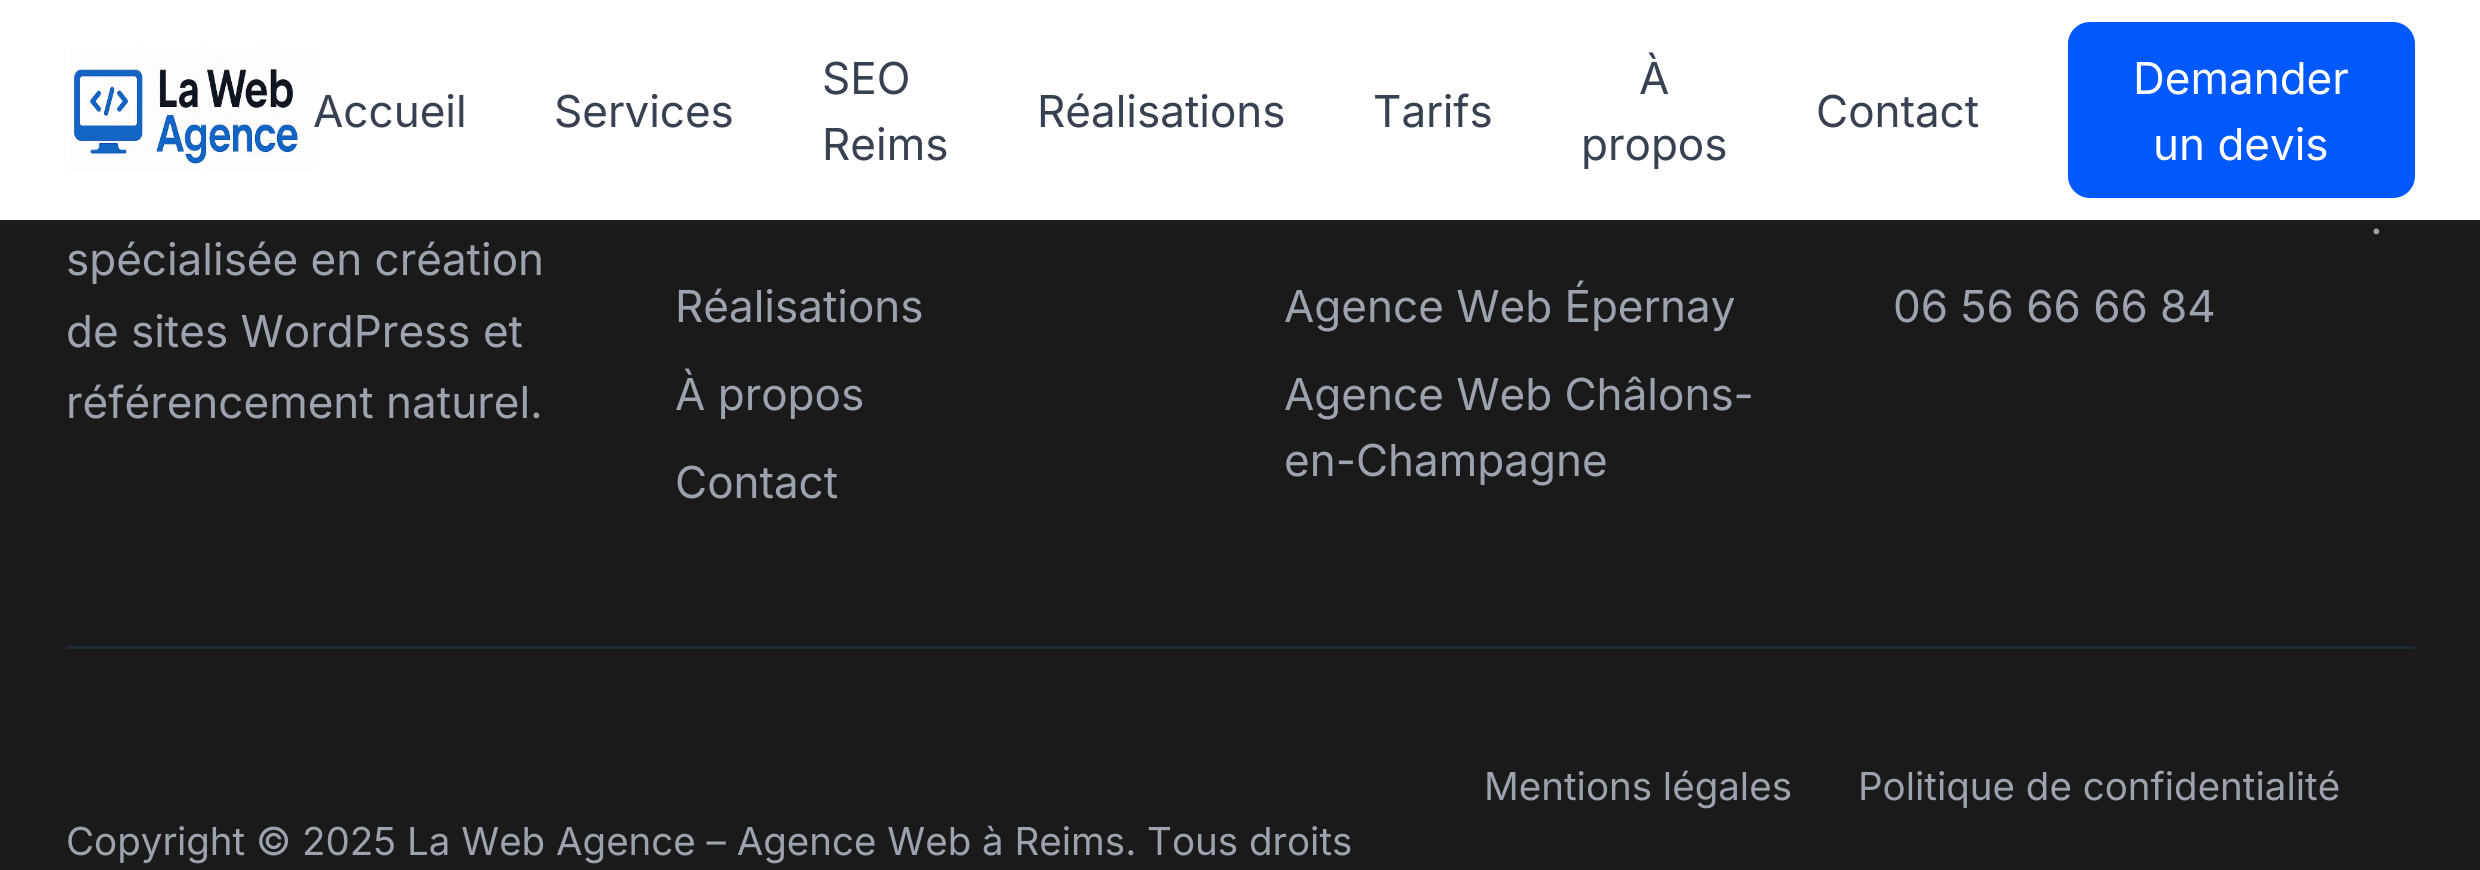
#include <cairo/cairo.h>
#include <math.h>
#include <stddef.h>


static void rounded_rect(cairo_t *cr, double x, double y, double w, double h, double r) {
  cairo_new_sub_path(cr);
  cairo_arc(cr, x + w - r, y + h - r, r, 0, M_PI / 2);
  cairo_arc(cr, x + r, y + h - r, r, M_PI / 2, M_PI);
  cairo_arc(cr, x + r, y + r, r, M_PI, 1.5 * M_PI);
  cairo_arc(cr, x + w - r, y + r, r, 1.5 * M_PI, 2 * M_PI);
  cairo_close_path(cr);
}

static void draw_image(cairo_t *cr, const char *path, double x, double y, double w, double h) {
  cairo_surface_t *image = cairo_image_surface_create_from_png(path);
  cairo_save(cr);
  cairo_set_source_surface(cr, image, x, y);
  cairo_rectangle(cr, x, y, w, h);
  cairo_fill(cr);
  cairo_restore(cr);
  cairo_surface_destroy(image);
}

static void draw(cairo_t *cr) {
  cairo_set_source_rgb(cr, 26 / 255.0, 26 / 255.0, 26 / 255.0);
  cairo_paint(cr);
  cairo_set_source_rgb(cr, 1, 1, 1);
  cairo_rectangle(cr, 0, 0, 2480, 220);
  cairo_fill(cr);
  draw_image(cr, "images/1.png", 69, 47, 244, 126);
  cairo_set_source_rgb(cr, 0, 89 / 255.0, 1);
  rounded_rect(cr, 2068, 22, 347, 176, 22);
  cairo_fill(cr);
  cairo_set_source_rgb(cr, 31 / 255.0, 41 / 255.0, 55 / 255.0);
  cairo_rectangle(cr, 66, 646, 2349, 3);
  cairo_fill(cr);
  cairo_select_font_face(cr, "Inter", CAIRO_FONT_SLANT_NORMAL, CAIRO_FONT_WEIGHT_NORMAL);
  cairo_set_font_size(cr, 44);
  cairo_set_source_rgb(cr, 55 / 255.0, 65 / 255.0, 81 / 255.0);
  cairo_move_to(cr, 313, 127);
  cairo_show_text(cr, "Accueil");
  cairo_move_to(cr, 554, 127);
  cairo_show_text(cr, "Services");
  cairo_move_to(cr, 822, 94);
  cairo_show_text(cr, "SEO");
  cairo_move_to(cr, 822, 160);
  cairo_show_text(cr, "Reims");
  cairo_move_to(cr, 1037, 127);
  cairo_show_text(cr, "Réalisations");
  cairo_move_to(cr, 1373, 127);
  cairo_show_text(cr, "Tarifs");
  cairo_move_to(cr, 1639, 94);
  cairo_show_text(cr, "À");
  cairo_move_to(cr, 1581, 160);
  cairo_show_text(cr, "propos");
  cairo_move_to(cr, 1816, 127);
  cairo_show_text(cr, "Contact");
  cairo_set_source_rgb(cr, 1, 1, 1);
  cairo_move_to(cr, 2133, 94);
  cairo_show_text(cr, "Demander");
  cairo_move_to(cr, 2153, 160);
  cairo_show_text(cr, "un devis");
  cairo_set_source_rgb(cr, 156 / 255.0, 163 / 255.0, 175 / 255.0);
  cairo_move_to(cr, 66, 275);
  cairo_show_text(cr, "spécialisée en création");
  cairo_move_to(cr, 66, 347);
  cairo_show_text(cr, "de sites WordPress et");
  cairo_move_to(cr, 66, 418);
  cairo_show_text(cr, "référencement naturel.");
  cairo_move_to(cr, 675, 322);
  cairo_show_text(cr, "Réalisations");
  cairo_move_to(cr, 675, 410);
  cairo_show_text(cr, "À propos");
  cairo_move_to(cr, 675, 498);
  cairo_show_text(cr, "Contact");
  cairo_move_to(cr, 1284, 322);
  cairo_show_text(cr, "Agence Web Épernay");
  cairo_move_to(cr, 1284, 410);
  cairo_show_text(cr, "Agence Web Châlons-");
  cairo_move_to(cr, 1284, 476);
  cairo_show_text(cr, "en-Champagne");
  cairo_move_to(cr, 2370, 234);
  cairo_show_text(cr, ".");
  cairo_move_to(cr, 1893, 322);
  cairo_show_text(cr, "06 56 66 66 84");
  cairo_set_font_size(cr, 38.5);
  cairo_move_to(cr, 1484, 800);
  cairo_show_text(cr, "Mentions légales");
  cairo_move_to(cr, 1858, 800);
  cairo_show_text(cr, "Politique de confidentialité");
  cairo_move_to(cr, 66, 855);
  cairo_show_text(cr, "Copyright © 2025 La Web Agence – Agence Web à Reims. Tous droits");
}

int main(void) {
  cairo_surface_t *surface = cairo_image_surface_create(CAIRO_FORMAT_RGB24, 2480, 870);
  cairo_t *cr = cairo_create(surface);
  cairo_font_options_t *options = cairo_font_options_create();
  cairo_font_options_set_hint_metrics(options, CAIRO_HINT_METRICS_OFF);
  cairo_font_options_set_hint_style(options, CAIRO_HINT_STYLE_NONE);
  cairo_set_font_options(cr, options);
  cairo_set_miter_limit(cr, 4);
  draw(cr);
  cairo_surface_write_to_png(surface, "out.png");
  cairo_font_options_destroy(options);
  cairo_destroy(cr);
  cairo_surface_destroy(surface);
  return 0;
}
